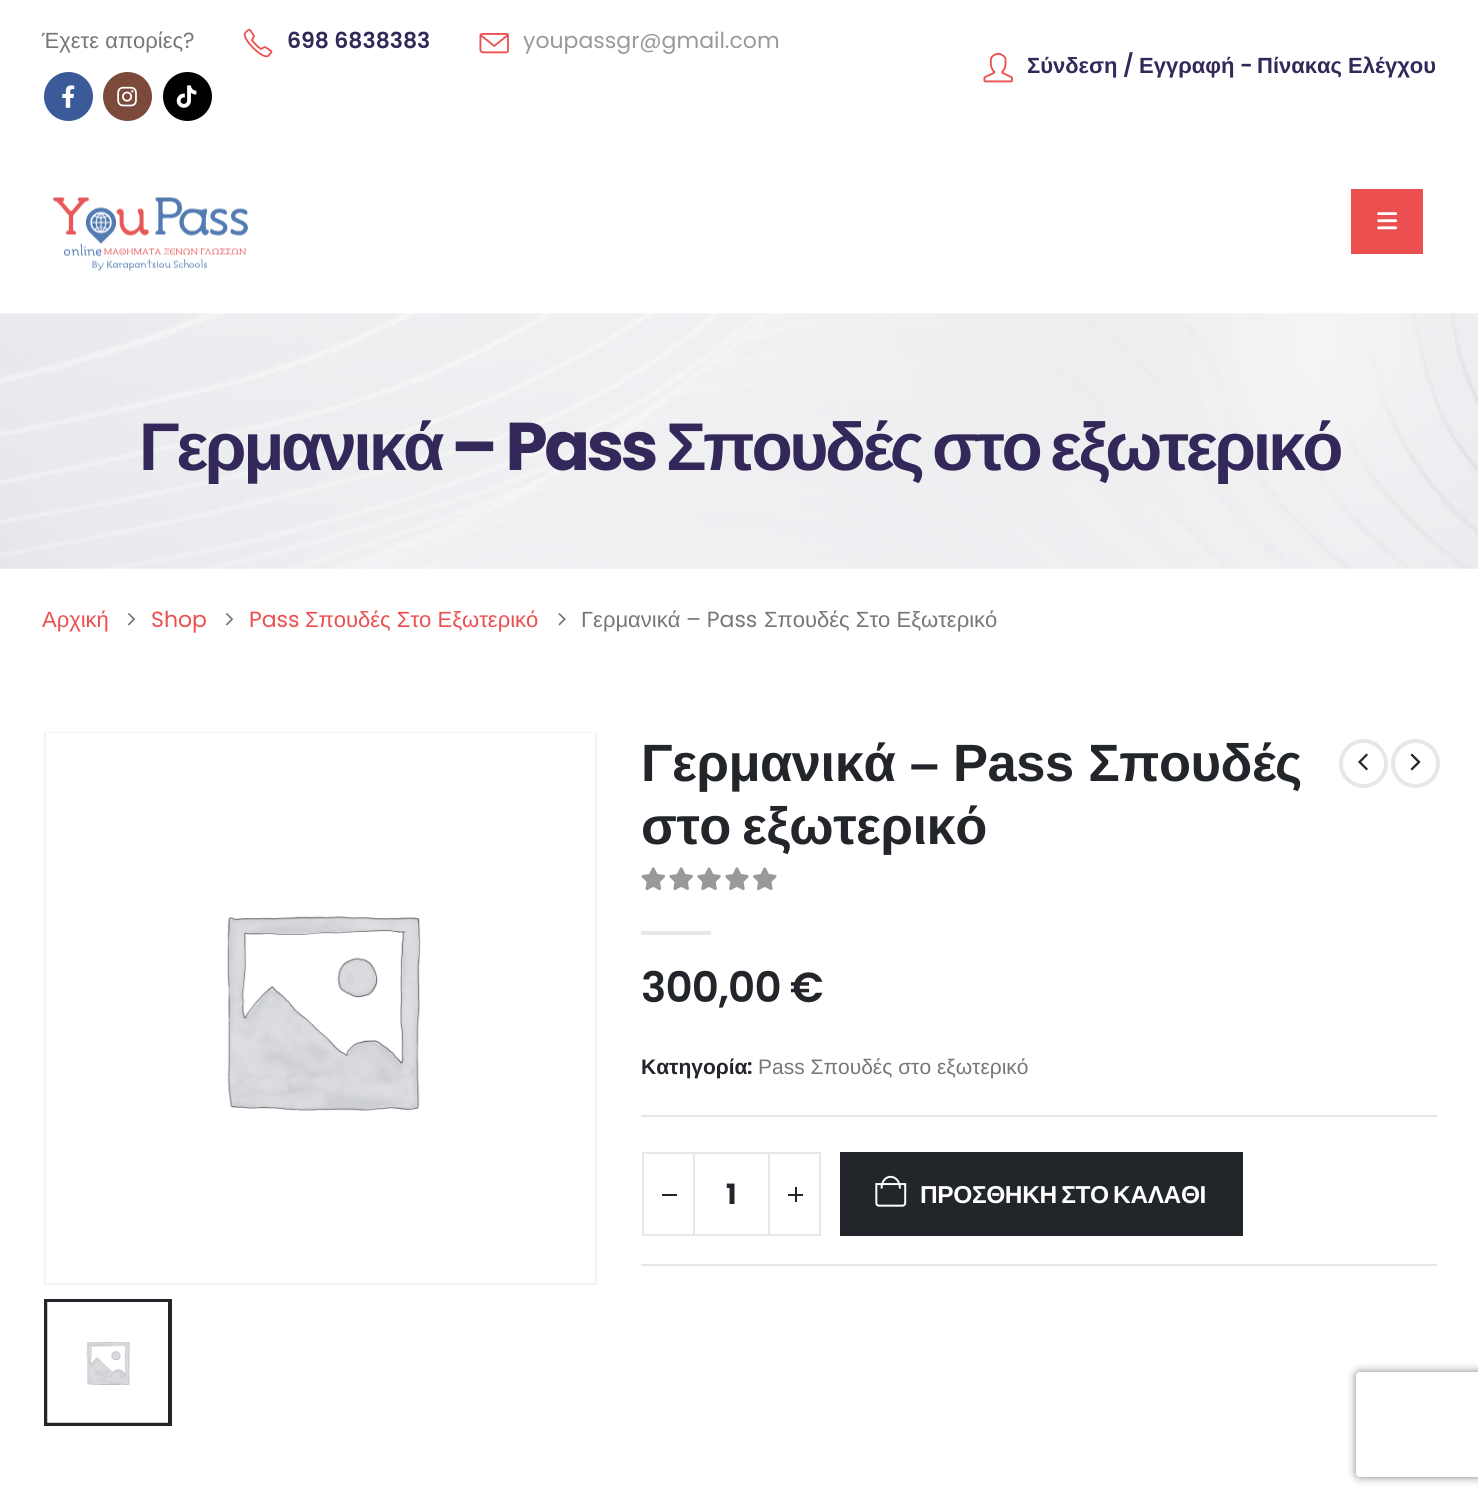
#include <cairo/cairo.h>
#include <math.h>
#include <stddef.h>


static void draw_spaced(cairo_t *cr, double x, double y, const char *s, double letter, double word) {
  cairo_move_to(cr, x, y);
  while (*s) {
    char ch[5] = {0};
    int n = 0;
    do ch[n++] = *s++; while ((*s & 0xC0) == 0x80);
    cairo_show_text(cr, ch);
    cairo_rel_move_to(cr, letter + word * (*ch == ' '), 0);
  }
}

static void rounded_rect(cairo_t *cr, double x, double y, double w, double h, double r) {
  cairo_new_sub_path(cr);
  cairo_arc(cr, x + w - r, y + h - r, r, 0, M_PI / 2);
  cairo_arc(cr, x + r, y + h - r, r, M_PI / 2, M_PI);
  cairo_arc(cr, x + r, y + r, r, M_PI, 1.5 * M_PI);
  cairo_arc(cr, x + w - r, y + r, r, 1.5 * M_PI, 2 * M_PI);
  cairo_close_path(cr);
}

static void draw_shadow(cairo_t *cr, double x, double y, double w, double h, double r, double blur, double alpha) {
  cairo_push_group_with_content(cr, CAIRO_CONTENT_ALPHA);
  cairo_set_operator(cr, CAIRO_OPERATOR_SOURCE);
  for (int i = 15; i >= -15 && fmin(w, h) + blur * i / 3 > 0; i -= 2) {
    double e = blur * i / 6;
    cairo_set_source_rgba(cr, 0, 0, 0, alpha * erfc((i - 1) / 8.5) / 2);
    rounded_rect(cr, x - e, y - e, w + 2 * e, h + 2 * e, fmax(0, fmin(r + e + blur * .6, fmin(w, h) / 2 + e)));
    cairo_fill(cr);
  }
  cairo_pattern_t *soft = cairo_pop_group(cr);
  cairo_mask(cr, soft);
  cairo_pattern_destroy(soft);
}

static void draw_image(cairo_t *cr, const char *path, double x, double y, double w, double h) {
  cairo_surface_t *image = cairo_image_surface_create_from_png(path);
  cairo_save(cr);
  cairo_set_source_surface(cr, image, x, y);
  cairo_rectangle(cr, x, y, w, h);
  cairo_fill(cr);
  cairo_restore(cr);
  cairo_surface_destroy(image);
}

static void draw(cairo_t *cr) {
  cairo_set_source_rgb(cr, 1, 1, 1);
  cairo_paint(cr);
  draw_image(cr, "images/1.png", 243, 28, 30, 30);
  draw_image(cr, "images/2.png", 479, 33, 30, 21);
  cairo_set_source_rgb(cr, 59 / 255.0, 90 / 255.0, 154 / 255.0);
  cairo_arc(cr, 68.5, 96.5, 24.5, 0, 2 * M_PI);
  cairo_fill(cr);
  draw_image(cr, "images/3.png", 62, 85, 13, 23);
  cairo_set_source_rgb(cr, 124 / 255.0, 74 / 255.0, 58 / 255.0);
  cairo_arc(cr, 127.5, 96.5, 24.5, 0, 2 * M_PI);
  cairo_fill(cr);
  draw_image(cr, "images/4.png", 117, 86, 20, 21);
  cairo_set_source_rgb(cr, 1 / 255.0, 1 / 255.0, 1 / 255.0);
  cairo_arc(cr, 187.5, 96.5, 24.5, 0, 2 * M_PI);
  cairo_fill(cr);
  draw_image(cr, "images/5.png", 176, 85, 21, 23);
  draw_image(cr, "images/6.png", 983, 52, 30, 31);
  draw_image(cr, "images/7.png", 53, 197, 195, 74);
  cairo_set_source_rgb(cr, 236 / 255.0, 79 / 255.0, 79 / 255.0);
  cairo_rectangle(cr, 1351, 189, 72, 65);
  cairo_fill(cr);
  draw_image(cr, "images/8.png", 1377, 212, 21, 18);
  draw_image(cr, "images/9.png", 0, 313, 1478, 256);
  draw_image(cr, "images/10.png", 127, 613, 9, 13);
  draw_image(cr, "images/10.png", 225, 613, 9, 13);
  draw_image(cr, "images/11.png", 558, 613, 8, 13);
  cairo_rectangle(cr, 45, 733, 551, 551);
  cairo_set_source_rgb(cr, 244 / 255.0, 244 / 255.0, 244 / 255.0);
  cairo_stroke(cr);
  draw_image(cr, "images/12.png", 46, 733, 549, 378);
  cairo_rectangle(cr, 46, 1301, 124, 123);
  cairo_set_source_rgb(cr, 34 / 255.0, 37 / 255.0, 41 / 255.0);
  cairo_set_line_width(cr, 4);
  cairo_stroke(cr);
  draw_image(cr, "images/13.png", 47, 1302, 121, 121);
  cairo_arc(cr, 1363.5, 763.5, 22.5, 0, 2 * M_PI);
  cairo_set_source_rgb(cr, 231 / 255.0, 231 / 255.0, 231 / 255.0);
  cairo_stroke(cr);
  draw_image(cr, "images/14.png", 1358, 753, 10, 18);
  cairo_arc(cr, 1415.5, 763.5, 22.5, 0, 2 * M_PI);
  cairo_stroke(cr);
  draw_image(cr, "images/15.png", 1410, 753, 11, 18);
  draw_image(cr, "images/16.png", 641, 867, 136, 23);
  cairo_rectangle(cr, 641, 931, 70, 4);
  cairo_fill(cr);
  cairo_rectangle(cr, 641, 1115, 796, 2);
  cairo_fill(cr);
  cairo_rectangle(cr, 641, 1264, 796, 2);
  cairo_fill(cr);
  cairo_rectangle(cr, 693, 1152, 77, 2);
  cairo_fill(cr);
  cairo_rectangle(cr, 693, 1234, 77, 2);
  cairo_fill(cr);
  cairo_rectangle(cr, 643, 1153, 51, 82);
  cairo_set_line_width(cr, 2);
  cairo_stroke(cr);
  cairo_set_source_rgb(cr, 34 / 255.0, 37 / 255.0, 41 / 255.0);
  cairo_rectangle(cr, 662, 1194, 15, 2);
  cairo_fill(cr);
  cairo_rectangle(cr, 769, 1153, 51, 82);
  cairo_set_source_rgb(cr, 231 / 255.0, 231 / 255.0, 231 / 255.0);
  cairo_stroke(cr);
  cairo_set_source_rgb(cr, 34 / 255.0, 37 / 255.0, 41 / 255.0);
  cairo_rectangle(cr, 788, 1194, 15, 2);
  cairo_fill(cr);
  cairo_rectangle(cr, 795, 1187, 2, 15);
  cairo_fill(cr);
  cairo_rectangle(cr, 840, 1152, 403, 84);
  cairo_fill(cr);
  draw_image(cr, "images/17.png", 875, 1175, 32, 32);
  cairo_save(cr);
  cairo_set_fill_rule(cr, CAIRO_FILL_RULE_EVEN_ODD);
  cairo_new_path(cr);
  cairo_move_to(cr, 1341, 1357);
  cairo_line_to(cr, 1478, 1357);
  cairo_line_to(cr, 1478, 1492);
  cairo_line_to(cr, 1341, 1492);
  cairo_close_path(cr);
  cairo_move_to(cr, 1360, 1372);
  cairo_line_to(cr, 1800, 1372);
  cairo_curve_to(cr, 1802, 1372, 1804, 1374, 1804, 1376);
  cairo_line_to(cr, 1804, 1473);
  cairo_curve_to(cr, 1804, 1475, 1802, 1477, 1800, 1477);
  cairo_line_to(cr, 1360, 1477);
  cairo_curve_to(cr, 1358, 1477, 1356, 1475, 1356, 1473);
  cairo_line_to(cr, 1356, 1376);
  cairo_curve_to(cr, 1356, 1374, 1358, 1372, 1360, 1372);
  cairo_close_path(cr);
  cairo_clip(cr);
  cairo_set_source_rgb(cr, 128 / 255.0, 128 / 255.0, 128 / 255.0);
  draw_shadow(cr, 1356, 1372, 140, 105, 4, 4.5, 1);
  cairo_restore(cr);
  cairo_select_font_face(cr, "Liberation Sans", CAIRO_FONT_SLANT_NORMAL, CAIRO_FONT_WEIGHT_NORMAL);
  cairo_set_font_size(cr, 22);
  cairo_set_source_rgb(cr, 119 / 255.0, 119 / 255.0, 119 / 255.0);
  cairo_move_to(cr, 42, 48);
  cairo_show_text(cr, "Έχετε απορίες");
  cairo_select_font_face(cr, "Poppins", CAIRO_FONT_SLANT_NORMAL, CAIRO_FONT_WEIGHT_NORMAL);
  cairo_move_to(cr, 183, 48);
  cairo_show_text(cr, "?");
  cairo_select_font_face(cr, "Poppins SemiBold", CAIRO_FONT_SLANT_NORMAL, CAIRO_FONT_WEIGHT_NORMAL);
  cairo_set_source_rgb(cr, 51 / 255.0, 40 / 255.0, 89 / 255.0);
  cairo_move_to(cr, 287, 48);
  cairo_show_text(cr, "698 6838383");
  cairo_select_font_face(cr, "Poppins", CAIRO_FONT_SLANT_NORMAL, CAIRO_FONT_WEIGHT_NORMAL);
  cairo_set_source_rgb(cr, 153 / 255.0, 153 / 255.0, 153 / 255.0);
  cairo_move_to(cr, 523, 48);
  cairo_show_text(cr, "youpassgr@gmail.com");
  cairo_select_font_face(cr, "Liberation Sans", CAIRO_FONT_SLANT_NORMAL, CAIRO_FONT_WEIGHT_BOLD);
  cairo_set_source_rgb(cr, 51 / 255.0, 40 / 255.0, 89 / 255.0);
  cairo_move_to(cr, 1027, 73);
  cairo_show_text(cr, "Σύνδεση");
  cairo_select_font_face(cr, "Poppins SemiBold", CAIRO_FONT_SLANT_NORMAL, CAIRO_FONT_WEIGHT_NORMAL);
  cairo_move_to(cr, 1123, 73);
  cairo_show_text(cr, "/");
  cairo_select_font_face(cr, "Liberation Sans", CAIRO_FONT_SLANT_NORMAL, CAIRO_FONT_WEIGHT_BOLD);
  cairo_move_to(cr, 1139, 73);
  cairo_show_text(cr, "Εγγραφή");
  cairo_select_font_face(cr, "Poppins SemiBold", CAIRO_FONT_SLANT_NORMAL, CAIRO_FONT_WEIGHT_NORMAL);
  cairo_move_to(cr, 1240, 73);
  cairo_show_text(cr, "-");
  cairo_select_font_face(cr, "Liberation Sans", CAIRO_FONT_SLANT_NORMAL, CAIRO_FONT_WEIGHT_BOLD);
  cairo_move_to(cr, 1257, 73);
  cairo_show_text(cr, "Πίνακας Ελέγχου");
  cairo_set_font_size(cr, 67.5);
  draw_spaced(cr, 139, 470, "Γερμανικά", -3.4, 0);
  cairo_select_font_face(cr, "Poppins", CAIRO_FONT_SLANT_NORMAL, CAIRO_FONT_WEIGHT_BOLD);
  draw_spaced(cr, 451, 470, "– Pass", -3.4, 0);
  cairo_select_font_face(cr, "Liberation Sans", CAIRO_FONT_SLANT_NORMAL, CAIRO_FONT_WEIGHT_BOLD);
  draw_spaced(cr, 666, 470, "Σπουδές", -3.4, 0);
  draw_spaced(cr, 932, 470, "στο", -3.4, 0);
  draw_spaced(cr, 1050, 470, "εξωτερικό", -3.4, 0);
  cairo_select_font_face(cr, "Liberation Sans", CAIRO_FONT_SLANT_NORMAL, CAIRO_FONT_WEIGHT_NORMAL);
  cairo_set_font_size(cr, 22);
  cairo_set_source_rgb(cr, 236 / 255.0, 79 / 255.0, 79 / 255.0);
  cairo_move_to(cr, 42, 627);
  cairo_show_text(cr, "Αρχική");
  cairo_select_font_face(cr, "Poppins", CAIRO_FONT_SLANT_NORMAL, CAIRO_FONT_WEIGHT_NORMAL);
  cairo_move_to(cr, 151, 627);
  cairo_show_text(cr, "Shop");
  cairo_move_to(cr, 249, 627);
  cairo_show_text(cr, "Pass");
  cairo_select_font_face(cr, "Liberation Sans", CAIRO_FONT_SLANT_NORMAL, CAIRO_FONT_WEIGHT_NORMAL);
  cairo_move_to(cr, 305, 627);
  cairo_show_text(cr, "Σπουδές Στο Εξωτερικό");
  cairo_set_source_rgb(cr, 119 / 255.0, 119 / 255.0, 119 / 255.0);
  cairo_move_to(cr, 581, 627);
  cairo_show_text(cr, "Γερμανικά");
  cairo_select_font_face(cr, "Poppins", CAIRO_FONT_SLANT_NORMAL, CAIRO_FONT_WEIGHT_NORMAL);
  cairo_move_to(cr, 686, 627);
  cairo_show_text(cr, "– Pass");
  cairo_select_font_face(cr, "Liberation Sans", CAIRO_FONT_SLANT_NORMAL, CAIRO_FONT_WEIGHT_NORMAL);
  cairo_move_to(cr, 764, 627);
  cairo_show_text(cr, "Σπουδές Στο Εξωτερικό");
  cairo_select_font_face(cr, "Liberation Sans", CAIRO_FONT_SLANT_NORMAL, CAIRO_FONT_WEIGHT_BOLD);
  cairo_set_font_size(cr, 52.5);
  cairo_set_source_rgb(cr, 34 / 255.0, 37 / 255.0, 41 / 255.0);
  draw_spaced(cr, 641, 781, "Γερμανικά – Pass Σπουδές", -0.5, 0.5);
  draw_spaced(cr, 641, 844, "στο εξωτερικό", -0.5, -3);
  cairo_select_font_face(cr, "Poppins SemiBold", CAIRO_FONT_SLANT_NORMAL, CAIRO_FONT_WEIGHT_NORMAL);
  cairo_set_font_size(cr, 42);
  draw_spaced(cr, 641, 1002, "300,00 €", -0.75, 0);
  cairo_select_font_face(cr, "Liberation Sans", CAIRO_FONT_SLANT_NORMAL, CAIRO_FONT_WEIGHT_BOLD);
  cairo_set_font_size(cr, 21);
  cairo_move_to(cr, 641, 1074);
  cairo_show_text(cr, "Κατηγορία");
  cairo_select_font_face(cr, "Poppins SemiBold", CAIRO_FONT_SLANT_NORMAL, CAIRO_FONT_WEIGHT_NORMAL);
  cairo_move_to(cr, 747, 1074);
  cairo_show_text(cr, ":");
  cairo_select_font_face(cr, "Liberation Sans", CAIRO_FONT_SLANT_NORMAL, CAIRO_FONT_WEIGHT_NORMAL);
  cairo_set_source_rgb(cr, 119 / 255.0, 119 / 255.0, 119 / 255.0);
  cairo_move_to(cr, 758, 1074);
  cairo_show_text(cr, "Pass Σπουδές στο εξωτερικό");
  cairo_select_font_face(cr, "Poppins", CAIRO_FONT_SLANT_NORMAL, CAIRO_FONT_WEIGHT_BOLD);
  cairo_set_font_size(cr, 28);
  cairo_set_source_rgb(cr, 34 / 255.0, 37 / 255.0, 41 / 255.0);
  cairo_move_to(cr, 726, 1204);
  cairo_show_text(cr, "1");
  cairo_select_font_face(cr, "Liberation Sans", CAIRO_FONT_SLANT_NORMAL, CAIRO_FONT_WEIGHT_BOLD);
  cairo_set_font_size(cr, 24.5);
  cairo_set_source_rgb(cr, 1, 1, 1);
  draw_spaced(cr, 920, 1203, "ΠΡΟΣΘΗΚΗ ΣΤΟ ΚΑΛΑΘΙ", -0.4, -2);
}

int main(void) {
  cairo_surface_t *surface = cairo_image_surface_create(CAIRO_FORMAT_RGB24, 1478, 1501);
  cairo_t *cr = cairo_create(surface);
  cairo_font_options_t *options = cairo_font_options_create();
  cairo_font_options_set_hint_metrics(options, CAIRO_HINT_METRICS_OFF);
  cairo_font_options_set_hint_style(options, CAIRO_HINT_STYLE_NONE);
  cairo_set_font_options(cr, options);
  cairo_set_miter_limit(cr, 4);
  draw(cr);
  cairo_surface_write_to_png(surface, "out.png");
  cairo_font_options_destroy(options);
  cairo_destroy(cr);
  cairo_surface_destroy(surface);
  return 0;
}
